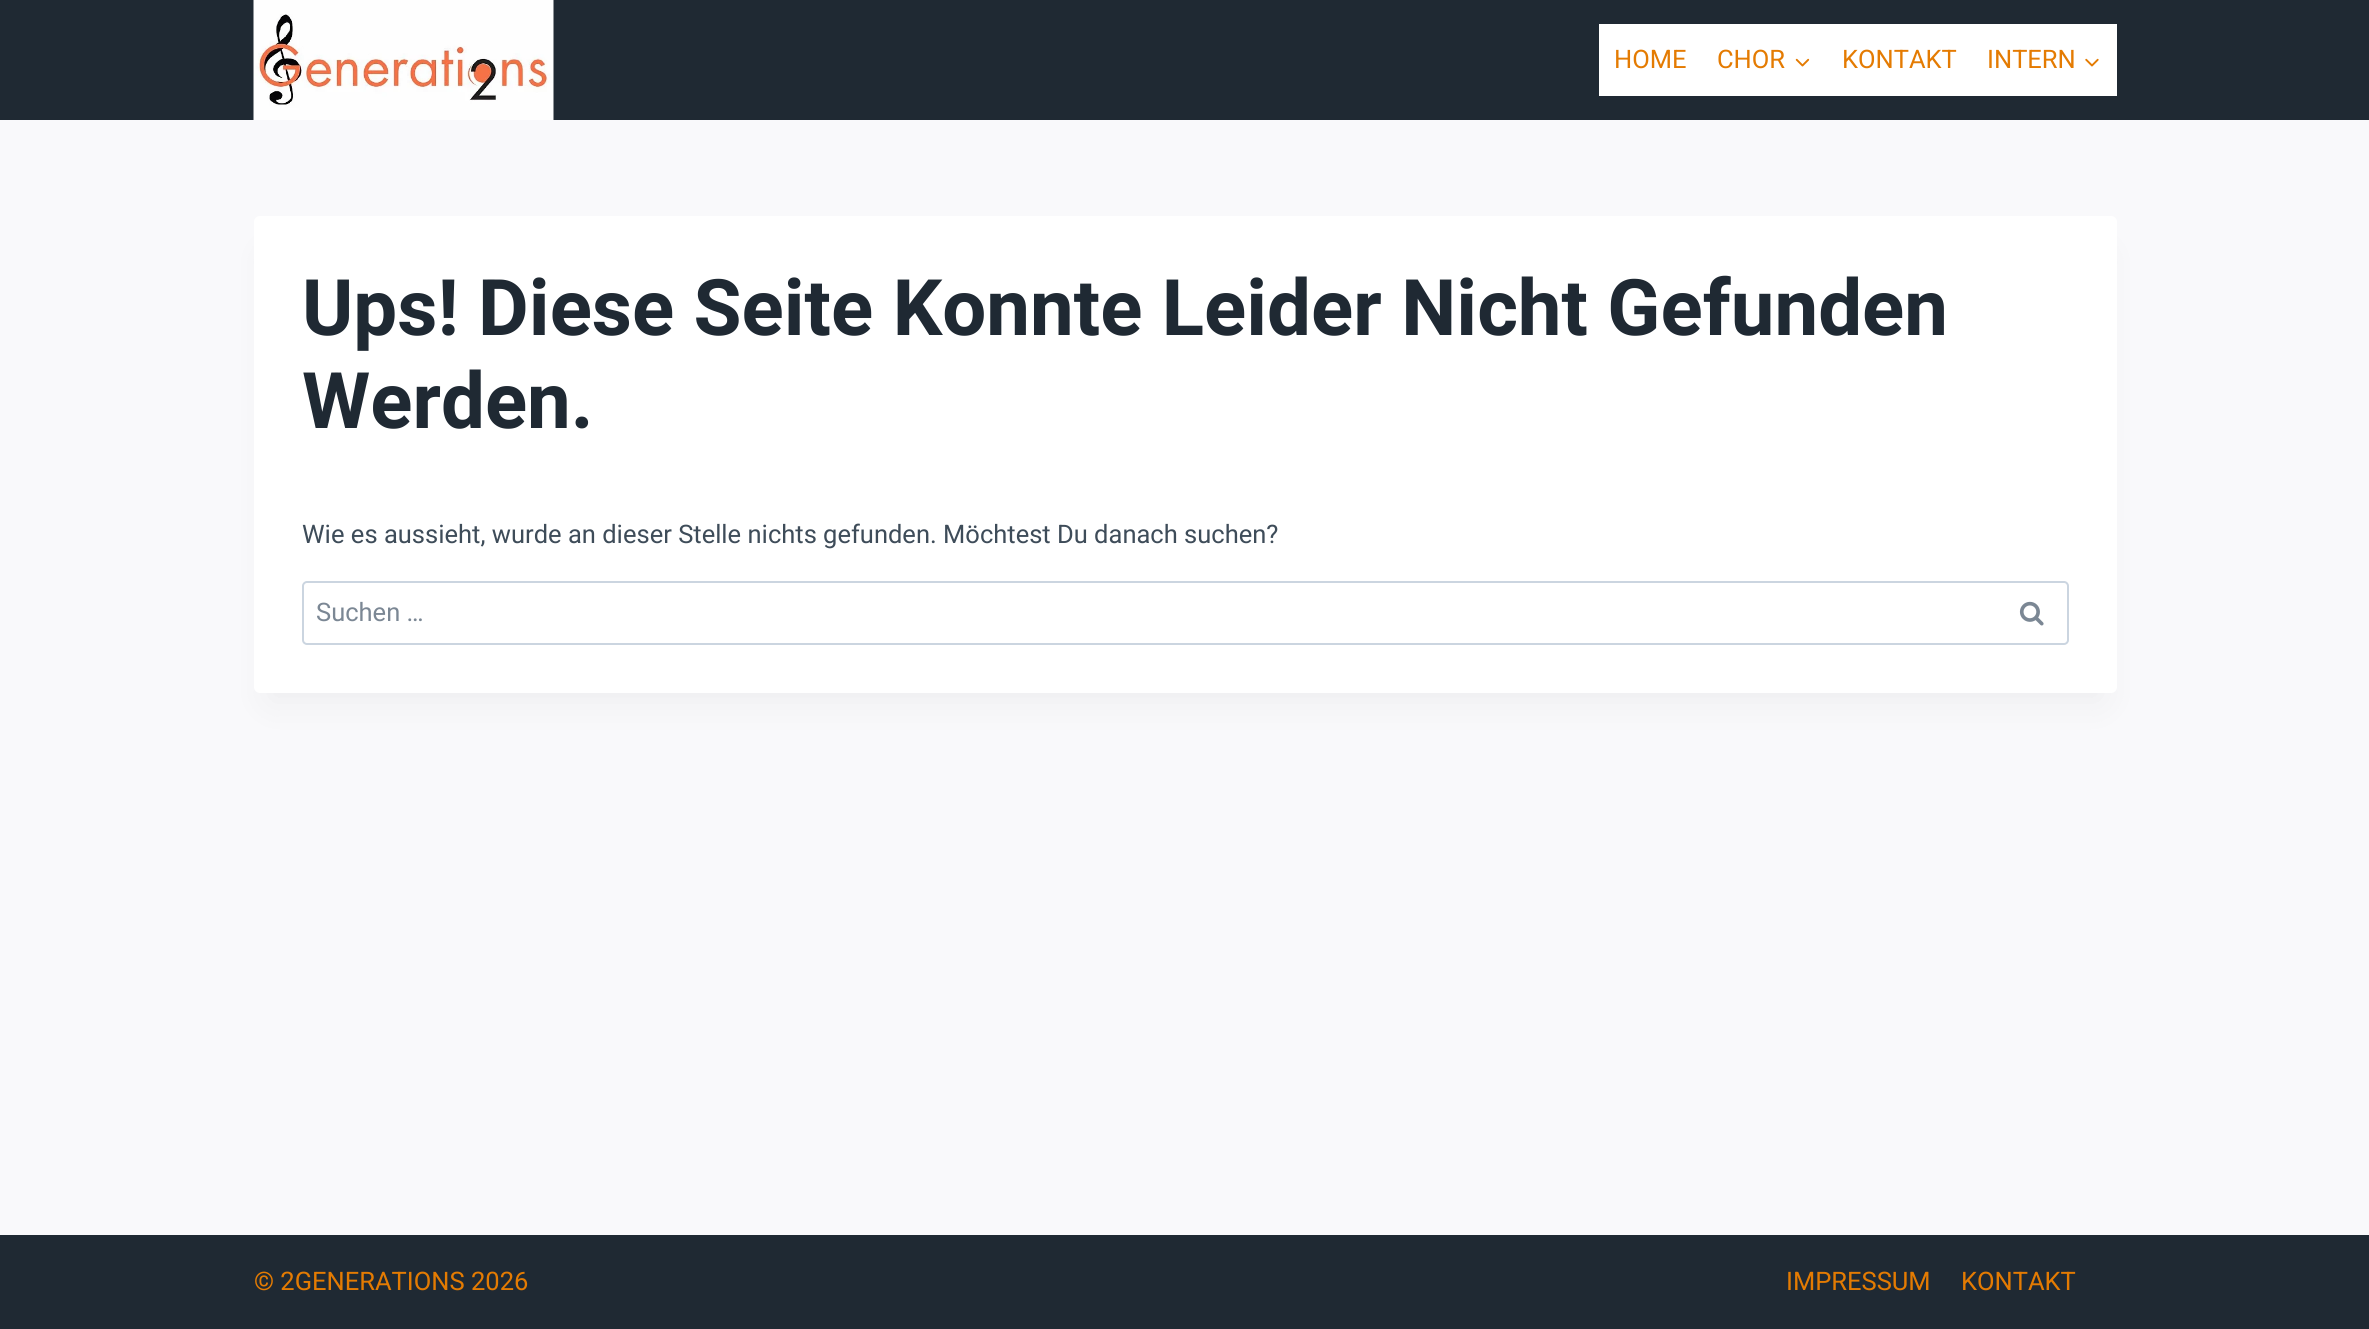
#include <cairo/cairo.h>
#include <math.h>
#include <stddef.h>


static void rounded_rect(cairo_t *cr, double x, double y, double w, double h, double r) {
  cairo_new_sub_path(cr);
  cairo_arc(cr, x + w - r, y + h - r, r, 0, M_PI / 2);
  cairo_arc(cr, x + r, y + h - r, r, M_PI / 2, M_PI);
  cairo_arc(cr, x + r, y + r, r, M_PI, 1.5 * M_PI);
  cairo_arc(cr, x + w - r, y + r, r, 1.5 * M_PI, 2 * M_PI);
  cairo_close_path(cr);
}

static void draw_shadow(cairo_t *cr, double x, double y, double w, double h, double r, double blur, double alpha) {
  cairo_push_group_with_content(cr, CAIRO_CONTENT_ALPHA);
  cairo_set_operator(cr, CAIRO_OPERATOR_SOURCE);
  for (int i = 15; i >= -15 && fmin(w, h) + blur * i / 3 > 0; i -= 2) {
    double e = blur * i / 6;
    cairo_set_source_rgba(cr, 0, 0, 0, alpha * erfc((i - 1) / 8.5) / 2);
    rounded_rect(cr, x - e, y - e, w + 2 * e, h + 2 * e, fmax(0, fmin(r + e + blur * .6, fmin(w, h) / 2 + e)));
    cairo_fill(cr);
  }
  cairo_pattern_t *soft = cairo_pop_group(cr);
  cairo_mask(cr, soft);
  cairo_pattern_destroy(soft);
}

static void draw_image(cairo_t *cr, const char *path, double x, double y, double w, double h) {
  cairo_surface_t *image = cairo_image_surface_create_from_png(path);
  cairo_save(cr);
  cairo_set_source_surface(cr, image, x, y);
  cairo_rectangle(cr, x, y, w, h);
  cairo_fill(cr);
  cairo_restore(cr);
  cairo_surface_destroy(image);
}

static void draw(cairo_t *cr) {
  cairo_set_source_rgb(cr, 249 / 255.0, 249 / 255.0, 251 / 255.0);
  cairo_paint(cr);
  cairo_set_source_rgb(cr, 31 / 255.0, 41 / 255.0, 51 / 255.0);
  cairo_rectangle(cr, 0, 0, 2369, 120);
  cairo_fill(cr);
  draw_image(cr, "images/1.png", 253, 0, 301, 120);
  cairo_set_source_rgb(cr, 1, 1, 1);
  cairo_rectangle(cr, 1599, 24, 518, 72);
  cairo_fill(cr);
  draw_image(cr, "images/2.png", 1795, 58, 15, 9);
  draw_image(cr, "images/3.png", 2085, 58, 14, 9);
  cairo_set_source_rgb(cr, 0, 0, 0);
  draw_shadow(cr, 269, 254, 1833, 447, 0, 19, 0.05);
  cairo_set_source_rgb(cr, 1, 1, 1);
  rounded_rect(cr, 254, 216, 1863, 477, 6);
  cairo_fill(cr);
  rounded_rect(cr, 303, 582, 1765, 62, 4);
  cairo_set_source_rgb(cr, 203 / 255.0, 213 / 255.0, 224 / 255.0);
  cairo_stroke(cr);
  draw_image(cr, "images/4.png", 2019, 601, 25, 25);
  cairo_set_source_rgb(cr, 31 / 255.0, 41 / 255.0, 51 / 255.0);
  cairo_rectangle(cr, 0, 1235, 2369, 94);
  cairo_fill(cr);
  cairo_select_font_face(cr, "Heebo", CAIRO_FONT_SLANT_NORMAL, CAIRO_FONT_WEIGHT_NORMAL);
  cairo_set_font_size(cr, 25.5);
  cairo_set_source_rgb(cr, 228 / 255.0, 123 / 255.0, 2 / 255.0);
  cairo_move_to(cr, 1614, 68);
  cairo_show_text(cr, "HOME");
  cairo_move_to(cr, 1717, 68);
  cairo_show_text(cr, "CHOR");
  cairo_move_to(cr, 1842, 68);
  cairo_show_text(cr, "KONTAKT");
  cairo_move_to(cr, 1987, 68);
  cairo_show_text(cr, "INTERN");
  cairo_select_font_face(cr, "Heebo", CAIRO_FONT_SLANT_NORMAL, CAIRO_FONT_WEIGHT_BOLD);
  cairo_set_font_size(cr, 78);
  cairo_set_source_rgb(cr, 31 / 255.0, 41 / 255.0, 51 / 255.0);
  cairo_move_to(cr, 302, 335);
  cairo_show_text(cr, "Ups! Diese Seite Konnte Leider Nicht Gefunden");
  cairo_move_to(cr, 302, 428);
  cairo_show_text(cr, "Werden.");
  cairo_select_font_face(cr, "Heebo", CAIRO_FONT_SLANT_NORMAL, CAIRO_FONT_WEIGHT_NORMAL);
  cairo_set_font_size(cr, 25.5);
  cairo_set_source_rgb(cr, 62 / 255.0, 76 / 255.0, 89 / 255.0);
  cairo_move_to(cr, 302, 543);
  cairo_show_text(cr, "Wie es aussieht, wurde an dieser Stelle nichts gefunden. Möchtest Du danach suchen?");
  cairo_set_source_rgb(cr, 123 / 255.0, 135 / 255.0, 148 / 255.0);
  cairo_move_to(cr, 316, 621);
  cairo_show_text(cr, "Suchen …");
  cairo_set_source_rgb(cr, 228 / 255.0, 123 / 255.0, 2 / 255.0);
  cairo_move_to(cr, 254, 1290);
  cairo_show_text(cr, "© 2GENERATIONS 2026");
  cairo_move_to(cr, 1786, 1290);
  cairo_show_text(cr, "IMPRESSUM");
  cairo_move_to(cr, 1961, 1290);
  cairo_show_text(cr, "KONTAKT");
}

int main(void) {
  cairo_surface_t *surface = cairo_image_surface_create(CAIRO_FORMAT_RGB24, 2369, 1329);
  cairo_t *cr = cairo_create(surface);
  cairo_font_options_t *options = cairo_font_options_create();
  cairo_font_options_set_hint_metrics(options, CAIRO_HINT_METRICS_OFF);
  cairo_font_options_set_hint_style(options, CAIRO_HINT_STYLE_NONE);
  cairo_set_font_options(cr, options);
  cairo_set_miter_limit(cr, 4);
  draw(cr);
  cairo_surface_write_to_png(surface, "out.png");
  cairo_font_options_destroy(options);
  cairo_destroy(cr);
  cairo_surface_destroy(surface);
  return 0;
}
